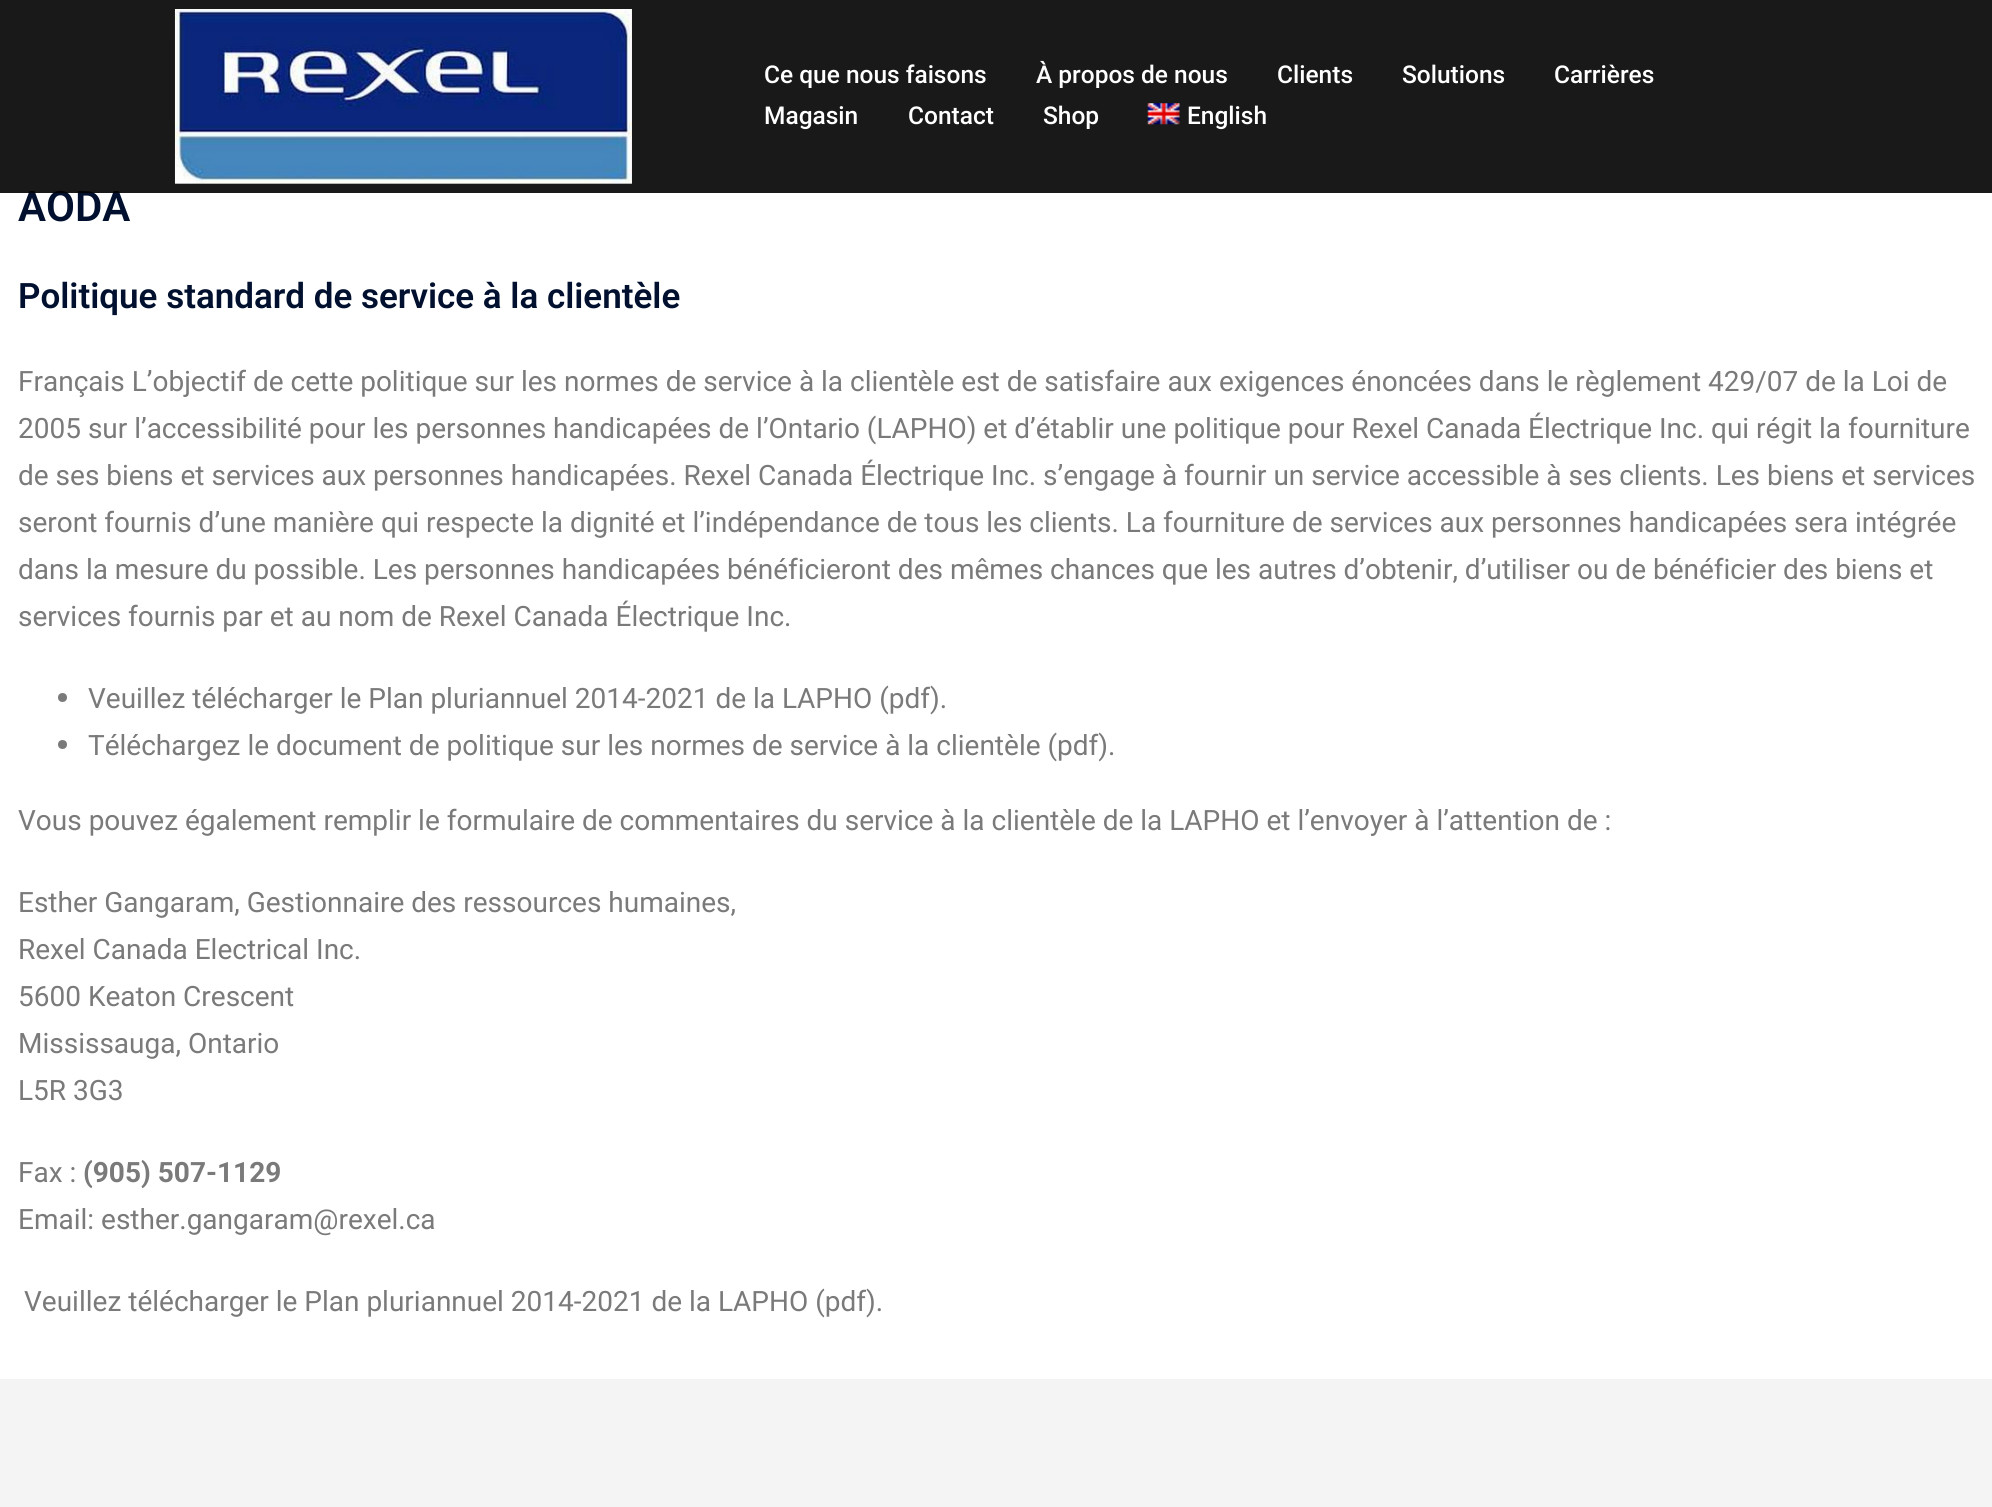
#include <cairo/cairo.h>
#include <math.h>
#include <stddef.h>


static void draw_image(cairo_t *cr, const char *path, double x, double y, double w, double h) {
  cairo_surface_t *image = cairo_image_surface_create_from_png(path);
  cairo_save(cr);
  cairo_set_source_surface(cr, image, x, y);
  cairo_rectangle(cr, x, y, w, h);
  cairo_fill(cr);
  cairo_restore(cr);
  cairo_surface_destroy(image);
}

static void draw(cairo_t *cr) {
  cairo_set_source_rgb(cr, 1, 1, 1);
  cairo_paint(cr);
  cairo_set_source_rgb(cr, 122 / 255.0, 122 / 255.0, 122 / 255.0);
  cairo_arc(cr, 62.5, 697.5, 4.5, 0, 2 * M_PI);
  cairo_fill(cr);
  cairo_arc(cr, 62.5, 744.5, 4.5, 0, 2 * M_PI);
  cairo_fill(cr);
  cairo_set_source_rgb(cr, 244 / 255.0, 244 / 255.0, 244 / 255.0);
  cairo_rectangle(cr, 0, 1379, 1992, 128);
  cairo_fill(cr);
  cairo_select_font_face(cr, "Roboto SemiBold", CAIRO_FONT_SLANT_NORMAL, CAIRO_FONT_WEIGHT_NORMAL);
  cairo_set_font_size(cr, 42);
  cairo_set_source_rgb(cr, 0, 16 / 255.0, 46 / 255.0);
  cairo_move_to(cr, 18, 221);
  cairo_show_text(cr, "AODA");
  cairo_set_source_rgba(cr, 0, 0, 0, 0.9);
  cairo_rectangle(cr, 0, 0, 1992, 193);
  cairo_fill(cr);
  cairo_select_font_face(cr, "Roboto Medium", CAIRO_FONT_SLANT_NORMAL, CAIRO_FONT_WEIGHT_NORMAL);
  cairo_set_font_size(cr, 24.5);
  cairo_set_source_rgb(cr, 1, 1, 1);
  cairo_move_to(cr, 1187, 124);
  cairo_show_text(cr, "English");
  draw_image(cr, "images/2.png", 1147, 103, 33, 22);
  cairo_move_to(cr, 1043, 124);
  cairo_show_text(cr, "Shop");
  cairo_move_to(cr, 908, 124);
  cairo_show_text(cr, "Contact");
  cairo_move_to(cr, 764, 124);
  cairo_show_text(cr, "Magasin");
  cairo_move_to(cr, 1554, 83);
  cairo_show_text(cr, "Carrières");
  cairo_move_to(cr, 1402, 83);
  cairo_show_text(cr, "Solutions");
  cairo_move_to(cr, 1277, 83);
  cairo_show_text(cr, "Clients");
  cairo_move_to(cr, 1036, 83);
  cairo_show_text(cr, "À propos de nous");
  cairo_move_to(cr, 764, 83);
  cairo_show_text(cr, "Ce que nous faisons");
  draw_image(cr, "images/1.png", 174, 9, 458, 175);
  cairo_select_font_face(cr, "Roboto SemiBold", CAIRO_FONT_SLANT_NORMAL, CAIRO_FONT_WEIGHT_NORMAL);
  cairo_set_font_size(cr, 35);
  cairo_set_source_rgb(cr, 0, 16 / 255.0, 46 / 255.0);
  cairo_move_to(cr, 18, 308);
  cairo_show_text(cr, "Politique standard de service à la clientèle");
  cairo_select_font_face(cr, "Roboto", CAIRO_FONT_SLANT_NORMAL, CAIRO_FONT_WEIGHT_NORMAL);
  cairo_set_font_size(cr, 28);
  cairo_set_source_rgb(cr, 122 / 255.0, 122 / 255.0, 122 / 255.0);
  cairo_move_to(cr, 18, 391);
  cairo_show_text(cr, "Français L’objectif de cette politique sur les normes de service à la clientèle est de satisfaire aux exigences énoncées dans le règlement 429/07 de la Loi de");
  cairo_move_to(cr, 18, 438);
  cairo_show_text(cr, "2005 sur l’accessibilité pour les personnes handicapées de l’Ontario (LAPHO) et d’établir une politique pour Rexel Canada Électrique Inc. qui régit la fourniture");
  cairo_move_to(cr, 18, 485);
  cairo_show_text(cr, "de ses biens et services aux personnes handicapées. Rexel Canada Électrique Inc. s’engage à fournir un service accessible à ses clients. Les biens et services");
  cairo_move_to(cr, 18, 532);
  cairo_show_text(cr, "seront fournis d’une manière qui respecte la dignité et l’indépendance de tous les clients. La fourniture de services aux personnes handicapées sera intégrée");
  cairo_move_to(cr, 18, 579);
  cairo_show_text(cr, "dans la mesure du possible. Les personnes handicapées bénéficieront des mêmes chances que les autres d’obtenir, d’utiliser ou de bénéficier des biens et");
  cairo_move_to(cr, 18, 626);
  cairo_show_text(cr, "services fournis par et au nom de Rexel Canada Électrique Inc.");
  cairo_move_to(cr, 88, 708);
  cairo_show_text(cr, "Veuillez télécharger le Plan pluriannuel 2014-2021 de la LAPHO (pdf).");
  cairo_move_to(cr, 88, 755);
  cairo_show_text(cr, "Téléchargez le document de politique sur les normes de service à la clientèle (pdf).");
  cairo_move_to(cr, 18, 830);
  cairo_show_text(cr, "Vous pouvez également remplir le formulaire de commentaires du service à la clientèle de la LAPHO et l’envoyer à l’attention de :");
  cairo_move_to(cr, 18, 912);
  cairo_show_text(cr, "Esther Gangaram, Gestionnaire des ressources humaines,");
  cairo_move_to(cr, 18, 959);
  cairo_show_text(cr, "Rexel Canada Electrical Inc.");
  cairo_move_to(cr, 18, 1006);
  cairo_show_text(cr, "5600 Keaton Crescent");
  cairo_move_to(cr, 18, 1053);
  cairo_show_text(cr, "Mississauga, Ontario");
  cairo_move_to(cr, 18, 1100);
  cairo_show_text(cr, "L5R 3G3");
  cairo_move_to(cr, 18, 1182);
  cairo_show_text(cr, "Fax :");
  cairo_select_font_face(cr, "Roboto", CAIRO_FONT_SLANT_NORMAL, CAIRO_FONT_WEIGHT_BOLD);
  cairo_move_to(cr, 83, 1182);
  cairo_show_text(cr, "(905) 507-1129");
  cairo_select_font_face(cr, "Roboto", CAIRO_FONT_SLANT_NORMAL, CAIRO_FONT_WEIGHT_NORMAL);
  cairo_move_to(cr, 18, 1229);
  cairo_show_text(cr, "Email: esther.gangaram@rexel.ca");
  cairo_move_to(cr, 24, 1311);
  cairo_show_text(cr, "Veuillez télécharger le Plan pluriannuel 2014-2021 de la LAPHO (pdf).");
}

int main(void) {
  cairo_surface_t *surface = cairo_image_surface_create(CAIRO_FORMAT_RGB24, 1992, 1507);
  cairo_t *cr = cairo_create(surface);
  cairo_font_options_t *options = cairo_font_options_create();
  cairo_font_options_set_hint_metrics(options, CAIRO_HINT_METRICS_OFF);
  cairo_font_options_set_hint_style(options, CAIRO_HINT_STYLE_NONE);
  cairo_set_font_options(cr, options);
  cairo_set_miter_limit(cr, 4);
  draw(cr);
  cairo_surface_write_to_png(surface, "out.png");
  cairo_font_options_destroy(options);
  cairo_destroy(cr);
  cairo_surface_destroy(surface);
  return 0;
}
